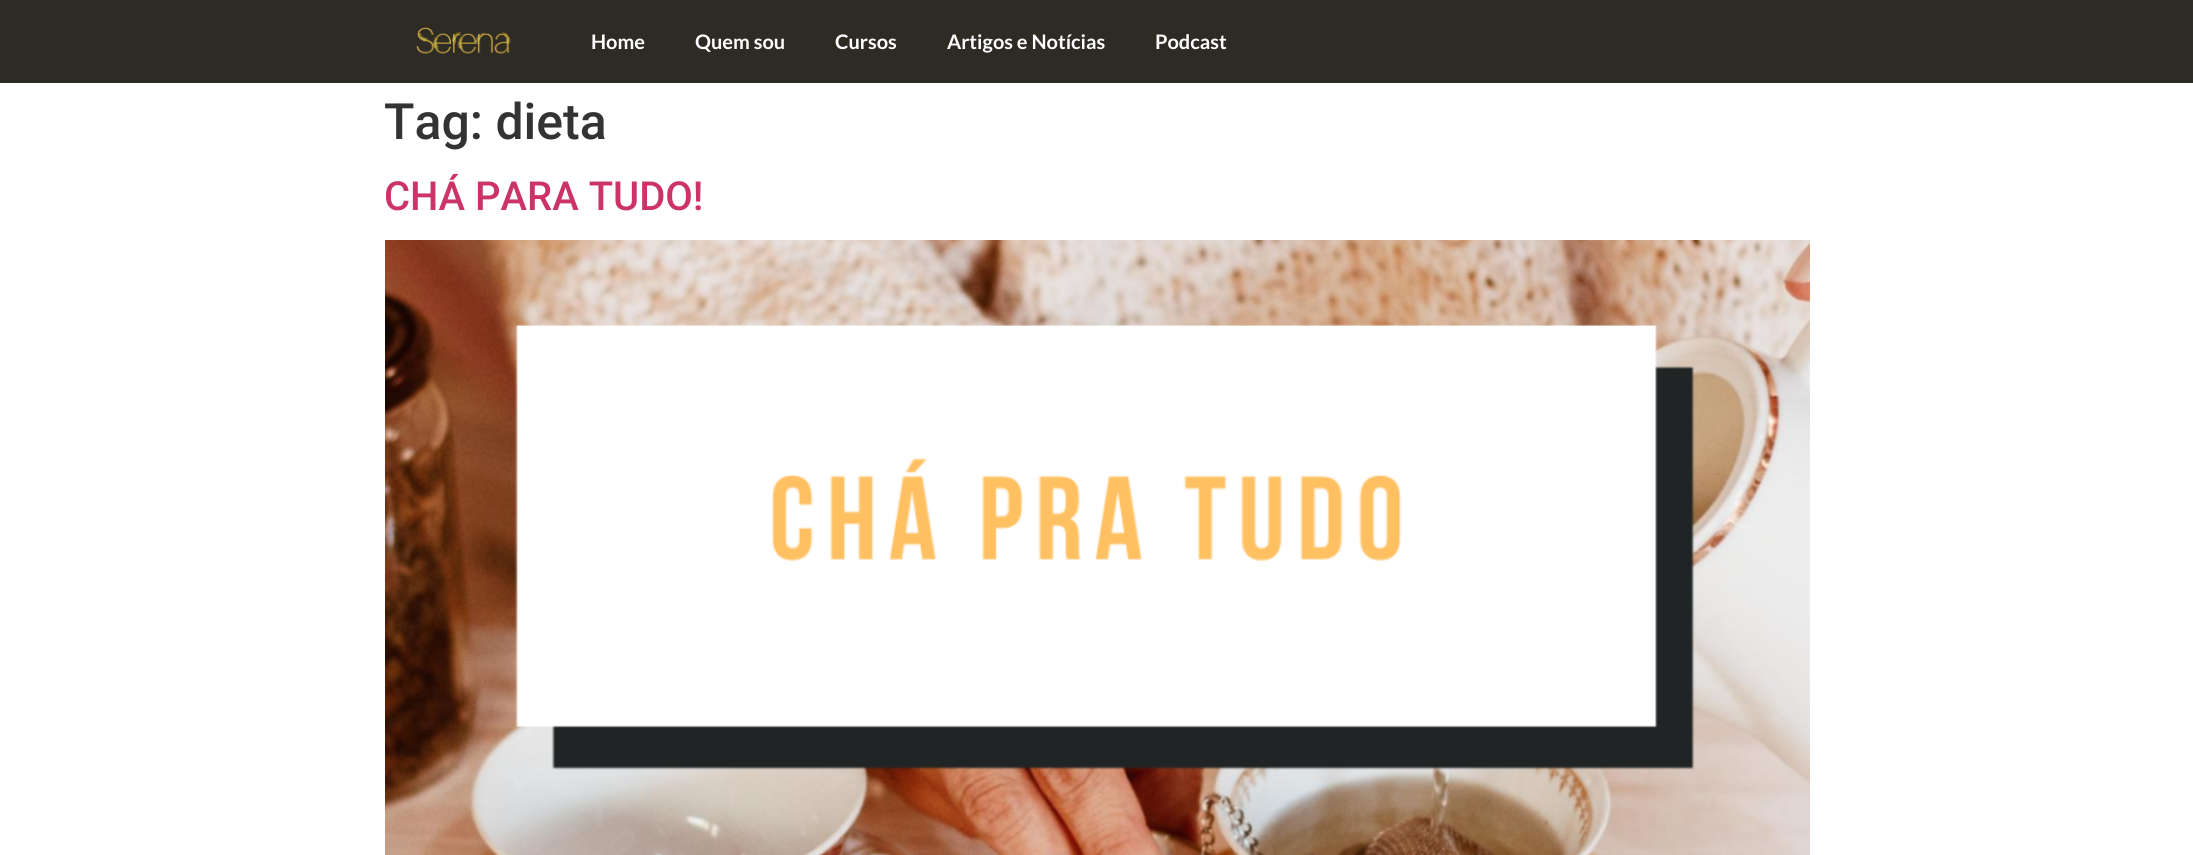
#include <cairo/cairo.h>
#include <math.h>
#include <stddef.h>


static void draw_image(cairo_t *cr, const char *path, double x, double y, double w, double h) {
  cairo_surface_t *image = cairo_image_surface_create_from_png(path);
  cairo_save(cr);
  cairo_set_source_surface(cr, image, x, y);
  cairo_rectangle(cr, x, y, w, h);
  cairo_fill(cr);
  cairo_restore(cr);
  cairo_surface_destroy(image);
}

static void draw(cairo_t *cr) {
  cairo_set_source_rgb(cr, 1, 1, 1);
  cairo_paint(cr);
  cairo_set_source_rgb(cr, 46 / 255.0, 43 / 255.0, 36 / 255.0);
  cairo_rectangle(cr, 0, 0, 2193, 83);
  cairo_fill(cr);
  draw_image(cr, "images/1.png", 416, 27, 95, 27);
  draw_image(cr, "images/2.png", 385, 240, 1425, 615);
  cairo_select_font_face(cr, "Lato", CAIRO_FONT_SLANT_NORMAL, CAIRO_FONT_WEIGHT_BOLD);
  cairo_set_font_size(cr, 20);
  cairo_set_source_rgb(cr, 1, 1, 1);
  cairo_move_to(cr, 591, 49);
  cairo_show_text(cr, "Home");
  cairo_move_to(cr, 695, 49);
  cairo_show_text(cr, "Quem sou");
  cairo_move_to(cr, 835, 49);
  cairo_show_text(cr, "Cursos");
  cairo_move_to(cr, 947, 49);
  cairo_show_text(cr, "Artigos e Notícias");
  cairo_move_to(cr, 1155, 49);
  cairo_show_text(cr, "Podcast");
  cairo_select_font_face(cr, "Roboto Medium", CAIRO_FONT_SLANT_NORMAL, CAIRO_FONT_WEIGHT_NORMAL);
  cairo_set_font_size(cr, 50);
  cairo_set_source_rgb(cr, 51 / 255.0, 51 / 255.0, 51 / 255.0);
  cairo_move_to(cr, 384, 139);
  cairo_show_text(cr, "Tag: dieta");
  cairo_set_font_size(cr, 40);
  cairo_set_source_rgb(cr, 204 / 255.0, 51 / 255.0, 102 / 255.0);
  cairo_move_to(cr, 384, 210);
  cairo_show_text(cr, "CHÁ PARA TUDO!");
}

int main(void) {
  cairo_surface_t *surface = cairo_image_surface_create(CAIRO_FORMAT_RGB24, 2193, 855);
  cairo_t *cr = cairo_create(surface);
  cairo_font_options_t *options = cairo_font_options_create();
  cairo_font_options_set_hint_metrics(options, CAIRO_HINT_METRICS_OFF);
  cairo_font_options_set_hint_style(options, CAIRO_HINT_STYLE_NONE);
  cairo_set_font_options(cr, options);
  cairo_set_miter_limit(cr, 4);
  draw(cr);
  cairo_surface_write_to_png(surface, "out.png");
  cairo_font_options_destroy(options);
  cairo_destroy(cr);
  cairo_surface_destroy(surface);
  return 0;
}
